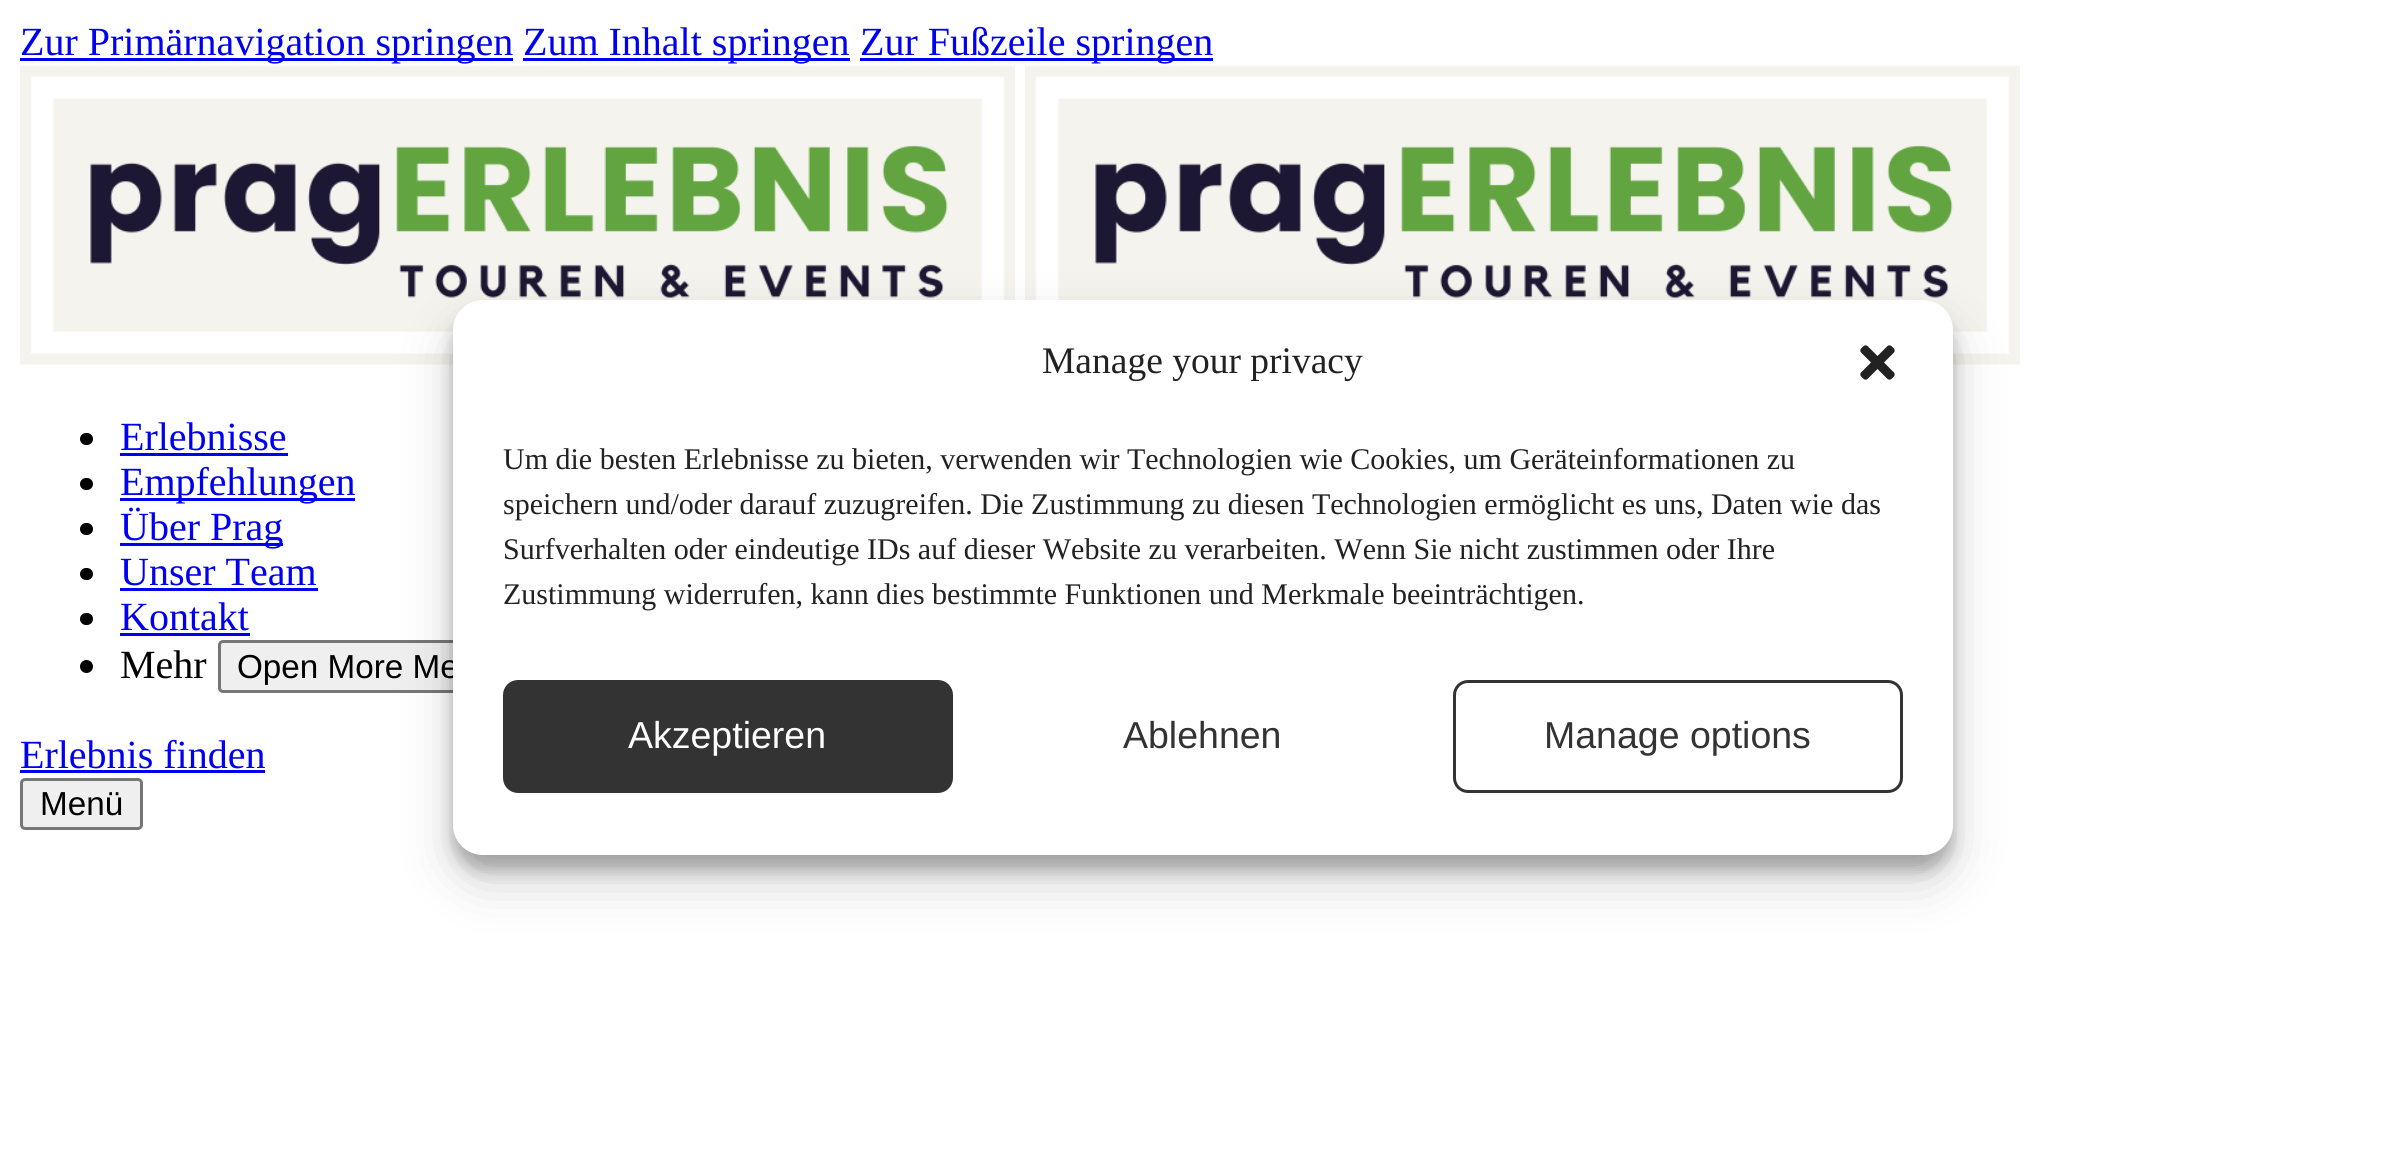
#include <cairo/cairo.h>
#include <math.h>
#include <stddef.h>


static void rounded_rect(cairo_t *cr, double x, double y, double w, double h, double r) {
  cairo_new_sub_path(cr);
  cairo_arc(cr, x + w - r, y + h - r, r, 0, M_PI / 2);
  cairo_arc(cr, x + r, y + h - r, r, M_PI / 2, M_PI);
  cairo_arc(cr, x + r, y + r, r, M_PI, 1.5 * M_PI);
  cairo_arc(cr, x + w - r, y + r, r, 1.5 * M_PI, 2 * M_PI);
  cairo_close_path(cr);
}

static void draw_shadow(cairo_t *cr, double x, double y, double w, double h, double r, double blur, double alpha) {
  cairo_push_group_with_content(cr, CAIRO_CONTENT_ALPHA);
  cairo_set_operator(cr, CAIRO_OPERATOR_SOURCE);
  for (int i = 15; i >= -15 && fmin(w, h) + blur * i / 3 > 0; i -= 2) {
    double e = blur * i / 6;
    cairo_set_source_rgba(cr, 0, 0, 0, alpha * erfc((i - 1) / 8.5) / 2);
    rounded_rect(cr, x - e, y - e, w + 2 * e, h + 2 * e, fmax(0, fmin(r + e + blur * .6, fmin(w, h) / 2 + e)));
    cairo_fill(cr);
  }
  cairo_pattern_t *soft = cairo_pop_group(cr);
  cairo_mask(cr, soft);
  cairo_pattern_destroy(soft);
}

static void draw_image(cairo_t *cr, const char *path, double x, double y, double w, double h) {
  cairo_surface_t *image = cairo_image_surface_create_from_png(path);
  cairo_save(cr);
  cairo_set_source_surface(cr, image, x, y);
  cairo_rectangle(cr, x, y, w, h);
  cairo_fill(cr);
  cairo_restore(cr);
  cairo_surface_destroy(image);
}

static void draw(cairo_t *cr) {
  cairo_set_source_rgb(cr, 1, 1, 1);
  cairo_paint(cr);
  cairo_set_source_rgb(cr, 0, 0, 238 / 255.0);
  cairo_rectangle(cr, 20, 58, 493, 3);
  cairo_fill(cr);
  cairo_rectangle(cr, 523, 58, 327, 3);
  cairo_fill(cr);
  cairo_rectangle(cr, 860, 58, 353, 3);
  cairo_fill(cr);
  draw_image(cr, "images/1.png", 20, 65, 995, 300);
  draw_image(cr, "images/2.png", 1025, 65, 995, 300);
  cairo_set_source_rgb(cr, 0, 0, 0);
  rounded_rect(cr, 80, 433, 13, 12, 6);
  cairo_fill(cr);
  cairo_set_source_rgb(cr, 0, 0, 238 / 255.0);
  cairo_rectangle(cr, 120, 453, 168, 3);
  cairo_fill(cr);
  cairo_set_source_rgb(cr, 0, 0, 0);
  rounded_rect(cr, 80, 478, 13, 12, 6);
  cairo_fill(cr);
  cairo_set_source_rgb(cr, 0, 0, 238 / 255.0);
  cairo_rectangle(cr, 120, 498, 235, 3);
  cairo_fill(cr);
  cairo_set_source_rgb(cr, 0, 0, 0);
  rounded_rect(cr, 80, 523, 13, 12, 6);
  cairo_fill(cr);
  cairo_set_source_rgb(cr, 0, 0, 238 / 255.0);
  cairo_rectangle(cr, 120, 543, 163, 3);
  cairo_fill(cr);
  cairo_set_source_rgb(cr, 0, 0, 0);
  rounded_rect(cr, 80, 568, 13, 12, 6);
  cairo_fill(cr);
  cairo_set_source_rgb(cr, 0, 0, 238 / 255.0);
  cairo_rectangle(cr, 120, 588, 198, 3);
  cairo_fill(cr);
  cairo_set_source_rgb(cr, 0, 0, 0);
  rounded_rect(cr, 80, 613, 13, 12, 6);
  cairo_fill(cr);
  cairo_set_source_rgb(cr, 0, 0, 238 / 255.0);
  cairo_rectangle(cr, 120, 633, 130, 3);
  cairo_fill(cr);
  cairo_set_source_rgb(cr, 0, 0, 0);
  cairo_arc(cr, 86.5, 666.5, 6.5, 0, 2 * M_PI);
  cairo_fill(cr);
  cairo_set_source_rgb(cr, 239 / 255.0, 239 / 255.0, 239 / 255.0);
  rounded_rect(cr, 219.5, 641.5, 294, 50, 3.5);
  cairo_fill_preserve(cr);
  cairo_set_source_rgb(cr, 118 / 255.0, 118 / 255.0, 118 / 255.0);
  cairo_set_line_width(cr, 3);
  cairo_stroke(cr);
  cairo_set_source_rgb(cr, 0, 0, 238 / 255.0);
  cairo_rectangle(cr, 20, 770, 245, 3);
  cairo_fill(cr);
  cairo_set_source_rgb(cr, 239 / 255.0, 239 / 255.0, 239 / 255.0);
  rounded_rect(cr, 21.5, 779.5, 120, 49, 3.5);
  cairo_fill_preserve(cr);
  cairo_set_source_rgb(cr, 118 / 255.0, 118 / 255.0, 118 / 255.0);
  cairo_stroke(cr);
  cairo_set_source_rgb(cr, 0, 0, 0);
  draw_shadow(cr, 453, 315, 1500, 555, 30, 7.5, 0.23);
  draw_shadow(cr, 453, 325, 1500, 555, 30, 25, 0.19);
  cairo_select_font_face(cr, "Liberation Serif", CAIRO_FONT_SLANT_NORMAL, CAIRO_FONT_WEIGHT_NORMAL);
  cairo_set_font_size(cr, 40);
  cairo_set_source_rgb(cr, 0, 0, 238 / 255.0);
  cairo_move_to(cr, 20, 55);
  cairo_show_text(cr, "Zur Primärnavigation springen");
  cairo_move_to(cr, 523, 55);
  cairo_show_text(cr, "Zum Inhalt springen");
  cairo_move_to(cr, 860, 55);
  cairo_show_text(cr, "Zur Fußzeile springen");
  cairo_move_to(cr, 120, 450);
  cairo_show_text(cr, "Erlebnisse");
  cairo_move_to(cr, 120, 495);
  cairo_show_text(cr, "Empfehlungen");
  cairo_move_to(cr, 120, 540);
  cairo_show_text(cr, "Über Prag");
  cairo_move_to(cr, 120, 585);
  cairo_show_text(cr, "Unser Team");
  cairo_move_to(cr, 120, 630);
  cairo_show_text(cr, "Kontakt");
  cairo_set_source_rgb(cr, 0, 0, 0);
  cairo_move_to(cr, 120, 678);
  cairo_show_text(cr, "Mehr");
  cairo_select_font_face(cr, "Liberation Sans", CAIRO_FONT_SLANT_NORMAL, CAIRO_FONT_WEIGHT_NORMAL);
  cairo_set_font_size(cr, 33.25);
  cairo_move_to(cr, 237, 678);
  cairo_show_text(cr, "Open More Me");
  cairo_select_font_face(cr, "Liberation Serif", CAIRO_FONT_SLANT_NORMAL, CAIRO_FONT_WEIGHT_NORMAL);
  cairo_set_font_size(cr, 40);
  cairo_set_source_rgb(cr, 0, 0, 238 / 255.0);
  cairo_move_to(cr, 20, 768);
  cairo_show_text(cr, "Erlebnis finden");
  cairo_select_font_face(cr, "Liberation Sans", CAIRO_FONT_SLANT_NORMAL, CAIRO_FONT_WEIGHT_NORMAL);
  cairo_set_font_size(cr, 33.25);
  cairo_set_source_rgb(cr, 0, 0, 0);
  cairo_move_to(cr, 40, 815);
  cairo_show_text(cr, "Menü");
  cairo_set_source_rgb(cr, 1, 1, 1);
  rounded_rect(cr, 453, 300, 1500, 555, 30);
  cairo_fill(cr);
  cairo_select_font_face(cr, "Liberation Serif", CAIRO_FONT_SLANT_NORMAL, CAIRO_FONT_WEIGHT_NORMAL);
  cairo_set_font_size(cr, 37.5);
  cairo_set_source_rgb(cr, 34 / 255.0, 34 / 255.0, 34 / 255.0);
  cairo_move_to(cr, 1042, 373);
  cairo_show_text(cr, "Manage your privacy");
  draw_image(cr, "images/3.png", 1860, 345, 35, 35);
  cairo_set_font_size(cr, 30);
  cairo_move_to(cr, 503, 469);
  cairo_show_text(cr, "Um die besten Erlebnisse zu bieten, verwenden wir Technologien wie Cookies, um Geräteinformationen zu");
  cairo_move_to(cr, 503, 514);
  cairo_show_text(cr, "speichern und/oder darauf zuzugreifen. Die Zustimmung zu diesen Technologien ermöglicht es uns, Daten wie das");
  cairo_move_to(cr, 503, 559);
  cairo_show_text(cr, "Surfverhalten oder eindeutige IDs auf dieser Website zu verarbeiten. Wenn Sie nicht zustimmen oder Ihre");
  cairo_move_to(cr, 503, 604);
  cairo_show_text(cr, "Zustimmung widerrufen, kann dies bestimmte Funktionen und Merkmale beeinträchtigen.");
  cairo_set_source_rgb(cr, 51 / 255.0, 51 / 255.0, 51 / 255.0);
  rounded_rect(cr, 504.5, 681.5, 447, 110, 13.5);
  cairo_fill_preserve(cr);
  cairo_stroke(cr);
  cairo_select_font_face(cr, "Liberation Sans", CAIRO_FONT_SLANT_NORMAL, CAIRO_FONT_WEIGHT_NORMAL);
  cairo_set_font_size(cr, 37.5);
  cairo_set_source_rgb(cr, 1, 1, 1);
  cairo_move_to(cr, 628, 748);
  cairo_show_text(cr, "Akzeptieren");
  cairo_set_source_rgb(cr, 51 / 255.0, 51 / 255.0, 51 / 255.0);
  cairo_move_to(cr, 1123, 748);
  cairo_show_text(cr, "Ablehnen");
  rounded_rect(cr, 1454.5, 681.5, 447, 110, 13.5);
  cairo_stroke(cr);
  cairo_move_to(cr, 1544, 748);
  cairo_show_text(cr, "Manage options");
}

int main(void) {
  cairo_surface_t *surface = cairo_image_surface_create(CAIRO_FORMAT_RGB24, 2404, 1151);
  cairo_t *cr = cairo_create(surface);
  cairo_font_options_t *options = cairo_font_options_create();
  cairo_font_options_set_hint_metrics(options, CAIRO_HINT_METRICS_OFF);
  cairo_font_options_set_hint_style(options, CAIRO_HINT_STYLE_NONE);
  cairo_set_font_options(cr, options);
  cairo_set_miter_limit(cr, 4);
  draw(cr);
  cairo_surface_write_to_png(surface, "out.png");
  cairo_font_options_destroy(options);
  cairo_destroy(cr);
  cairo_surface_destroy(surface);
  return 0;
}
